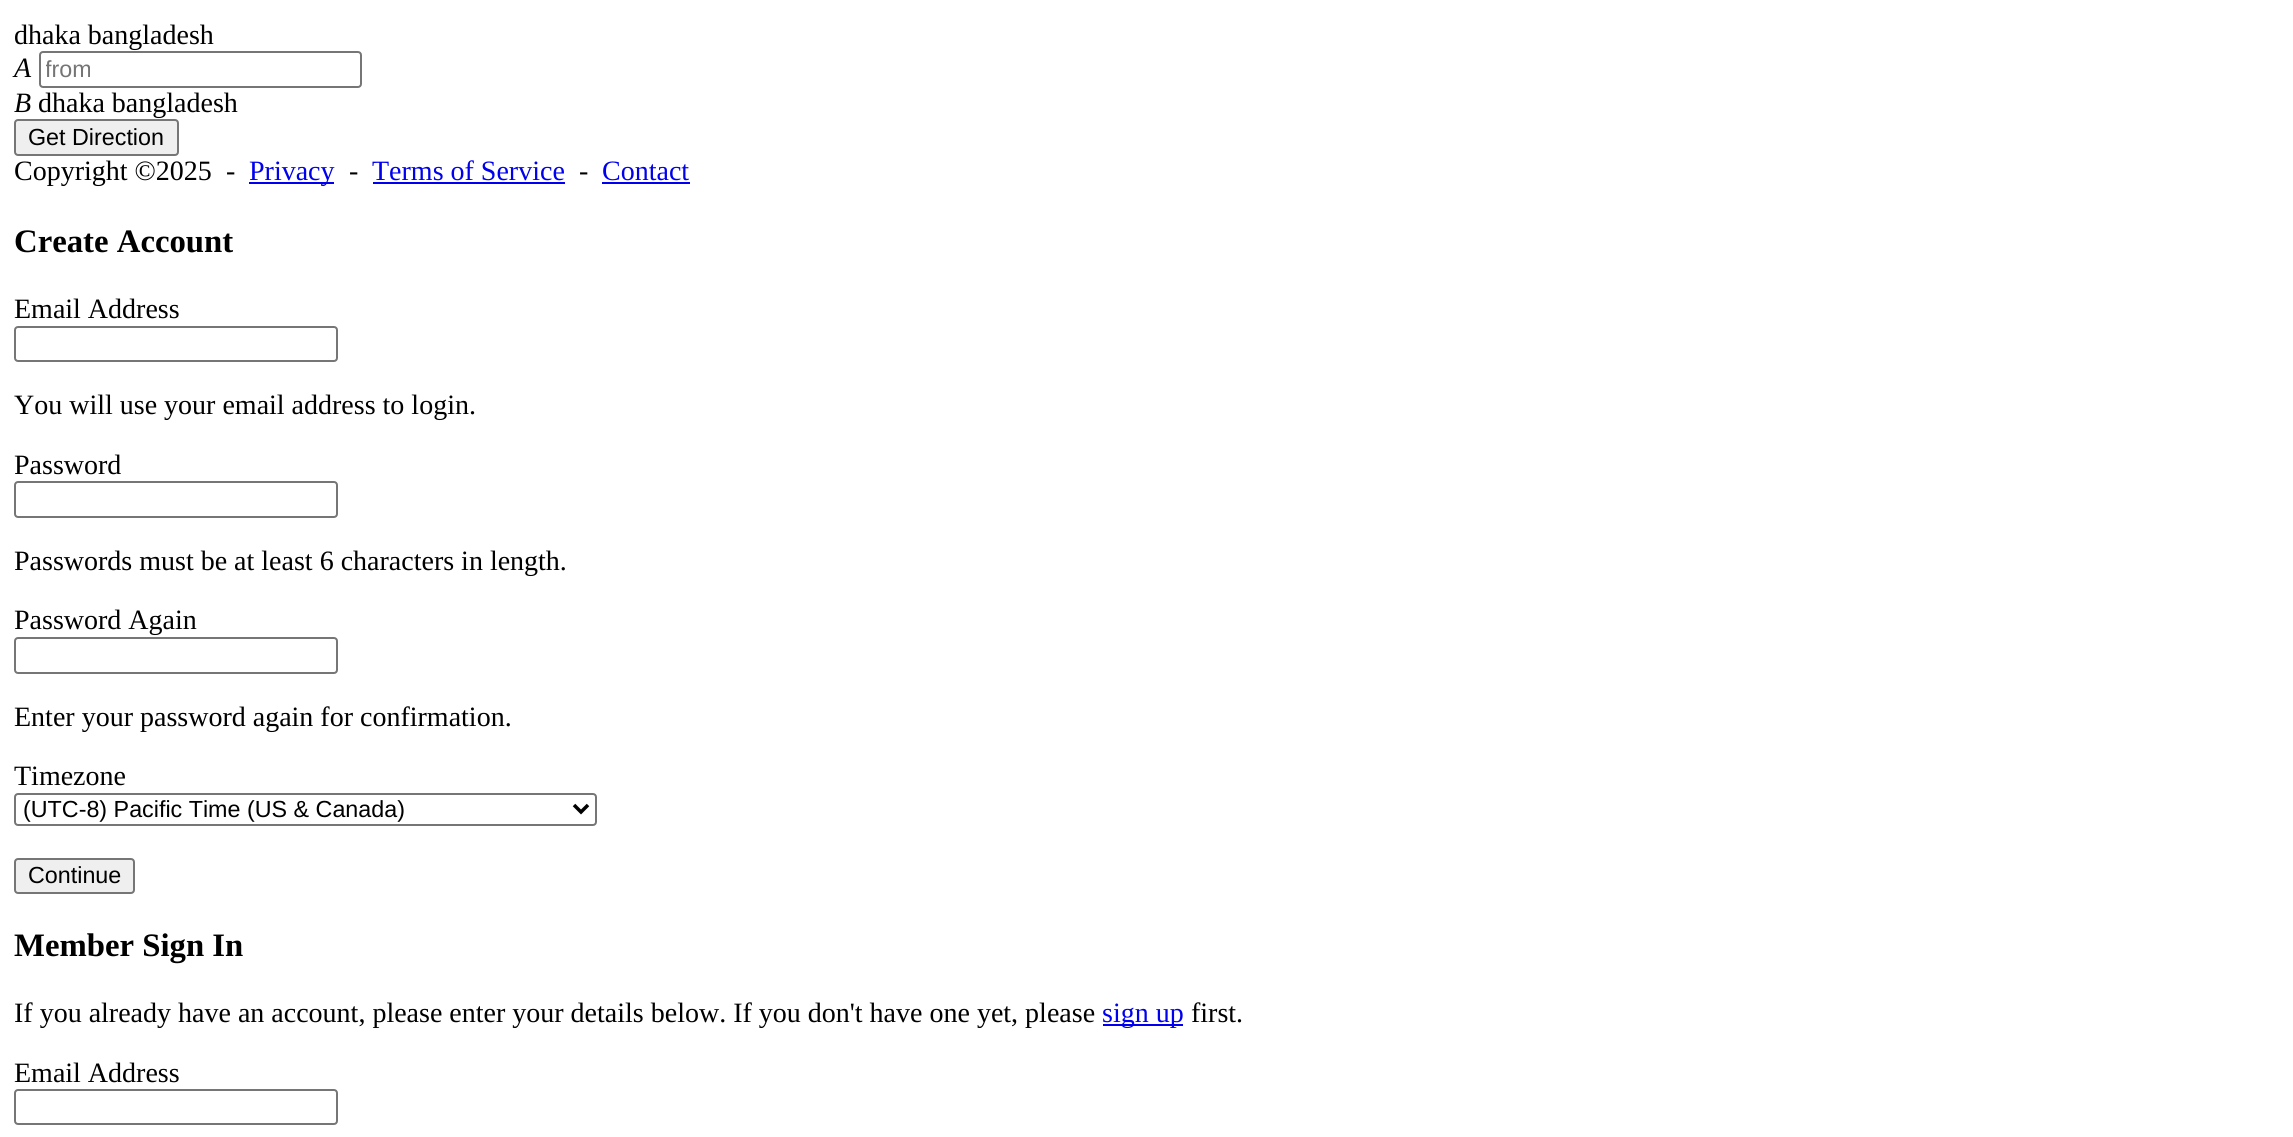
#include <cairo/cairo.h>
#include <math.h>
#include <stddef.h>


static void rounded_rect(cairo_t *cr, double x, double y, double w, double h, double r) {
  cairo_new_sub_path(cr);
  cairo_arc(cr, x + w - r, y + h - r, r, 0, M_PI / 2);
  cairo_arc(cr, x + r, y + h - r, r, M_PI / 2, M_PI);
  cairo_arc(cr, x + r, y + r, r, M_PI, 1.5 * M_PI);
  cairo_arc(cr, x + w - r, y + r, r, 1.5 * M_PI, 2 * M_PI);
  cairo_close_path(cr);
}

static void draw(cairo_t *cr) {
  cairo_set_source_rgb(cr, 1, 1, 1);
  cairo_paint(cr);
  rounded_rect(cr, 40, 52, 321, 35, 3);
  cairo_set_source_rgb(cr, 118 / 255.0, 118 / 255.0, 118 / 255.0);
  cairo_stroke(cr);
  cairo_set_source_rgb(cr, 239 / 255.0, 239 / 255.0, 239 / 255.0);
  rounded_rect(cr, 15, 120, 163, 35, 3);
  cairo_fill_preserve(cr);
  cairo_set_source_rgb(cr, 118 / 255.0, 118 / 255.0, 118 / 255.0);
  cairo_stroke(cr);
  cairo_set_source_rgb(cr, 0, 0, 238 / 255.0);
  cairo_rectangle(cr, 249, 182, 85, 2);
  cairo_fill(cr);
  cairo_rectangle(cr, 373, 182, 192, 2);
  cairo_fill(cr);
  cairo_rectangle(cr, 602, 182, 88, 2);
  cairo_fill(cr);
  rounded_rect(cr, 15, 327, 322, 34, 3);
  cairo_set_source_rgb(cr, 118 / 255.0, 118 / 255.0, 118 / 255.0);
  cairo_stroke(cr);
  rounded_rect(cr, 15, 482, 322, 35, 3);
  cairo_stroke(cr);
  rounded_rect(cr, 15, 638, 322, 35, 3);
  cairo_stroke(cr);
  rounded_rect(cr, 15, 794, 581, 31, 3);
  cairo_stroke(cr);
  cairo_new_path(cr);
  cairo_move_to(cr, 574, 805);
  cairo_line_to(cr, 581, 812);
  cairo_line_to(cr, 588, 805);
  cairo_set_source_rgb(cr, 0, 0, 0);
  cairo_set_line_width(cr, 3.5);
  cairo_stroke(cr);
  cairo_set_source_rgb(cr, 239 / 255.0, 239 / 255.0, 239 / 255.0);
  rounded_rect(cr, 15, 859, 119, 34, 3);
  cairo_fill_preserve(cr);
  cairo_set_source_rgb(cr, 118 / 255.0, 118 / 255.0, 118 / 255.0);
  cairo_set_line_width(cr, 2);
  cairo_stroke(cr);
  cairo_set_source_rgb(cr, 0, 0, 238 / 255.0);
  cairo_rectangle(cr, 1103, 1024, 80, 2);
  cairo_fill(cr);
  rounded_rect(cr, 15, 1090, 322, 34, 3);
  cairo_set_source_rgb(cr, 118 / 255.0, 118 / 255.0, 118 / 255.0);
  cairo_stroke(cr);
  cairo_select_font_face(cr, "Liberation Serif", CAIRO_FONT_SLANT_NORMAL, CAIRO_FONT_WEIGHT_NORMAL);
  cairo_set_font_size(cr, 28);
  cairo_set_source_rgb(cr, 0, 0, 0);
  cairo_move_to(cr, 14, 44);
  cairo_show_text(cr, "dhaka bangladesh");
  cairo_select_font_face(cr, "Liberation Serif", CAIRO_FONT_SLANT_ITALIC, CAIRO_FONT_WEIGHT_NORMAL);
  cairo_move_to(cr, 14, 77);
  cairo_show_text(cr, "A");
  cairo_save(cr);
  cairo_rectangle(cr, 46, 56, 309, 26);
  cairo_clip(cr);
  cairo_select_font_face(cr, "Liberation Sans", CAIRO_FONT_SLANT_NORMAL, CAIRO_FONT_WEIGHT_NORMAL);
  cairo_set_font_size(cr, 23.3);
  cairo_set_source_rgb(cr, 117 / 255.0, 117 / 255.0, 117 / 255.0);
  cairo_move_to(cr, 45, 77);
  cairo_show_text(cr, "from");
  cairo_restore(cr);
  cairo_move_to(cr, 14, 112);
  cairo_show_text(cr, "B");
  cairo_select_font_face(cr, "Liberation Serif", CAIRO_FONT_SLANT_NORMAL, CAIRO_FONT_WEIGHT_NORMAL);
  cairo_move_to(cr, 38, 112);
  cairo_show_text(cr, "dhaka bangladesh");
  cairo_select_font_face(cr, "Liberation Sans", CAIRO_FONT_SLANT_NORMAL, CAIRO_FONT_WEIGHT_NORMAL);
  cairo_set_font_size(cr, 23.3);
  cairo_move_to(cr, 28, 145);
  cairo_show_text(cr, "Get Direction");
  cairo_select_font_face(cr, "Liberation Serif", CAIRO_FONT_SLANT_NORMAL, CAIRO_FONT_WEIGHT_NORMAL);
  cairo_set_font_size(cr, 28);
  cairo_move_to(cr, 14, 180);
  cairo_show_text(cr, "Copyright ©2025");
  cairo_move_to(cr, 226, 180);
  cairo_show_text(cr, "-");
  cairo_set_source_rgb(cr, 0, 0, 238 / 255.0);
  cairo_move_to(cr, 249, 180);
  cairo_show_text(cr, "Privacy");
  cairo_set_source_rgb(cr, 0, 0, 0);
  cairo_move_to(cr, 349, 180);
  cairo_show_text(cr, "-");
  cairo_set_source_rgb(cr, 0, 0, 238 / 255.0);
  cairo_move_to(cr, 372, 180);
  cairo_show_text(cr, "Terms of Service");
  cairo_set_source_rgb(cr, 0, 0, 0);
  cairo_move_to(cr, 579, 180);
  cairo_show_text(cr, "-");
  cairo_set_source_rgb(cr, 0, 0, 238 / 255.0);
  cairo_move_to(cr, 602, 180);
  cairo_show_text(cr, "Contact");
  cairo_select_font_face(cr, "Liberation Serif", CAIRO_FONT_SLANT_NORMAL, CAIRO_FONT_WEIGHT_BOLD);
  cairo_set_font_size(cr, 32.75);
  cairo_set_source_rgb(cr, 0, 0, 0);
  cairo_move_to(cr, 14, 252);
  cairo_show_text(cr, "Create Account");
  cairo_select_font_face(cr, "Liberation Serif", CAIRO_FONT_SLANT_NORMAL, CAIRO_FONT_WEIGHT_NORMAL);
  cairo_set_font_size(cr, 28);
  cairo_move_to(cr, 14, 318);
  cairo_show_text(cr, "Email Address");
  cairo_move_to(cr, 14, 414);
  cairo_show_text(cr, "You will use your email address to login.");
  cairo_move_to(cr, 14, 474);
  cairo_show_text(cr, "Password");
  cairo_move_to(cr, 14, 570);
  cairo_show_text(cr, "Passwords must be at least 6 characters in length.");
  cairo_move_to(cr, 14, 629);
  cairo_show_text(cr, "Password Again");
  cairo_move_to(cr, 14, 726);
  cairo_show_text(cr, "Enter your password again for confirmation.");
  cairo_move_to(cr, 14, 785);
  cairo_show_text(cr, "Timezone");
  cairo_select_font_face(cr, "Liberation Sans", CAIRO_FONT_SLANT_NORMAL, CAIRO_FONT_WEIGHT_NORMAL);
  cairo_set_font_size(cr, 23.3);
  cairo_move_to(cr, 23, 817);
  cairo_show_text(cr, "(UTC-8) Pacific Time (US & Canada)");
  cairo_move_to(cr, 28, 883);
  cairo_show_text(cr, "Continue");
  cairo_select_font_face(cr, "Liberation Serif", CAIRO_FONT_SLANT_NORMAL, CAIRO_FONT_WEIGHT_BOLD);
  cairo_set_font_size(cr, 32.75);
  cairo_move_to(cr, 14, 956);
  cairo_show_text(cr, "Member Sign In");
  cairo_select_font_face(cr, "Liberation Serif", CAIRO_FONT_SLANT_NORMAL, CAIRO_FONT_WEIGHT_NORMAL);
  cairo_set_font_size(cr, 28);
  cairo_move_to(cr, 14, 1022);
  cairo_show_text(cr, "If you already have an account, please enter your details below. If you don't have one yet, please");
  cairo_set_source_rgb(cr, 0, 0, 238 / 255.0);
  cairo_move_to(cr, 1102, 1022);
  cairo_show_text(cr, "sign up");
  cairo_set_source_rgb(cr, 0, 0, 0);
  cairo_move_to(cr, 1191, 1022);
  cairo_show_text(cr, "first.");
  cairo_move_to(cr, 14, 1082);
  cairo_show_text(cr, "Email Address");
}

int main(void) {
  cairo_surface_t *surface = cairo_image_surface_create(CAIRO_FORMAT_RGB24, 2293, 1137);
  cairo_t *cr = cairo_create(surface);
  cairo_font_options_t *options = cairo_font_options_create();
  cairo_font_options_set_hint_metrics(options, CAIRO_HINT_METRICS_OFF);
  cairo_font_options_set_hint_style(options, CAIRO_HINT_STYLE_NONE);
  cairo_set_font_options(cr, options);
  cairo_set_miter_limit(cr, 4);
  draw(cr);
  cairo_surface_write_to_png(surface, "out.png");
  cairo_font_options_destroy(options);
  cairo_destroy(cr);
  cairo_surface_destroy(surface);
  return 0;
}
